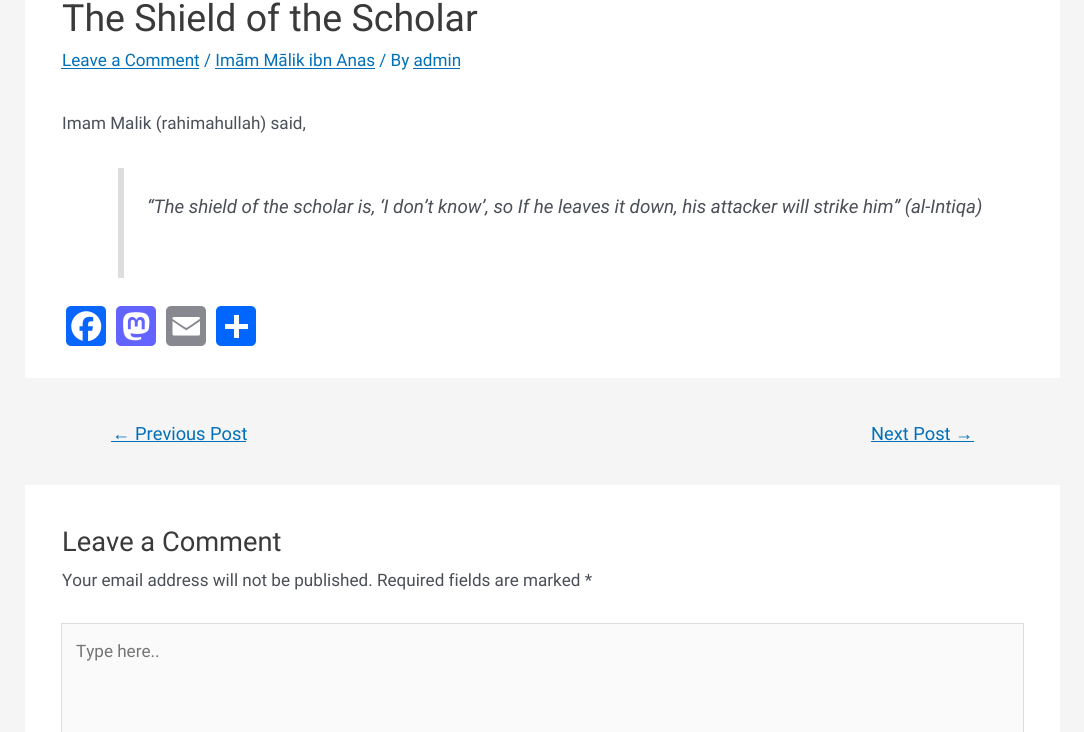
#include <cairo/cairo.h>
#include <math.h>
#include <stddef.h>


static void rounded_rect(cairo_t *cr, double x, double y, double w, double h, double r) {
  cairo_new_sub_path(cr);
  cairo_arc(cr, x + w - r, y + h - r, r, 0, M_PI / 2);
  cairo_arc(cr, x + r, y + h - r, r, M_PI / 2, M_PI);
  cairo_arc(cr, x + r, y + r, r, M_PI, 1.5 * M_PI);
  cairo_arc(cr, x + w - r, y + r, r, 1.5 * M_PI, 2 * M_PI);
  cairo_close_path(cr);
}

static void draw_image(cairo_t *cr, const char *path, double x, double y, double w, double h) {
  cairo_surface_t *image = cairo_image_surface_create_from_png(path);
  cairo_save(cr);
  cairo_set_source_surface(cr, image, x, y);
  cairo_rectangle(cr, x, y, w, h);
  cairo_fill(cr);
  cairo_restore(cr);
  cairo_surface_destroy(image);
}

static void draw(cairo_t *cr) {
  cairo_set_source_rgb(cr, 245 / 255.0, 245 / 255.0, 245 / 255.0);
  cairo_paint(cr);
  cairo_set_source_rgb(cr, 1, 1, 1);
  cairo_rectangle(cr, 25, 0, 1035, 378);
  cairo_fill(cr);
  cairo_set_source_rgb(cr, 1 / 255.0, 112 / 255.0, 185 / 255.0);
  cairo_rectangle(cr, 61, 68, 138, 1);
  cairo_fill(cr);
  cairo_rectangle(cr, 215, 68, 160, 1);
  cairo_fill(cr);
  cairo_rectangle(cr, 413, 68, 47, 1);
  cairo_fill(cr);
  cairo_set_source_rgb(cr, 221 / 255.0, 221 / 255.0, 221 / 255.0);
  cairo_rectangle(cr, 118, 168, 6, 110);
  cairo_fill(cr);
  cairo_set_source_rgb(cr, 8 / 255.0, 102 / 255.0, 1);
  rounded_rect(cr, 66, 306, 40, 40, 5);
  cairo_fill(cr);
  draw_image(cr, "images/1.png", 71, 311, 31, 31);
  cairo_set_source_rgb(cr, 99 / 255.0, 100 / 255.0, 1);
  rounded_rect(cr, 116, 306, 40, 40, 5);
  cairo_fill(cr);
  draw_image(cr, "images/2.png", 123, 312, 27, 29);
  cairo_set_source_rgb(cr, 136 / 255.0, 137 / 255.0, 144 / 255.0);
  rounded_rect(cr, 166, 306, 40, 40, 5);
  cairo_fill(cr);
  draw_image(cr, "images/3.png", 172, 317, 28, 19);
  cairo_set_source_rgb(cr, 1 / 255.0, 102 / 255.0, 1);
  rounded_rect(cr, 216, 306, 40, 40, 5);
  cairo_fill(cr);
  cairo_set_source_rgb(cr, 1, 1, 1);
  cairo_rectangle(cr, 234, 315, 5, 23);
  cairo_fill(cr);
  cairo_rectangle(cr, 225, 324, 23, 5);
  cairo_fill(cr);
  cairo_set_source_rgb(cr, 1 / 255.0, 112 / 255.0, 185 / 255.0);
  cairo_rectangle(cr, 111, 441, 135, 1);
  cairo_fill(cr);
  cairo_rectangle(cr, 871, 441, 103, 1);
  cairo_fill(cr);
  cairo_set_source_rgb(cr, 1, 1, 1);
  cairo_rectangle(cr, 25, 485, 1035, 247);
  cairo_fill(cr);
  cairo_set_source_rgb(cr, 250 / 255.0, 250 / 255.0, 250 / 255.0);
  cairo_rectangle(cr, 61.5, 623.5, 962, 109);
  cairo_fill_preserve(cr);
  cairo_set_source_rgb(cr, 221 / 255.0, 221 / 255.0, 221 / 255.0);
  cairo_set_line_width(cr, 1);
  cairo_stroke(cr);
  cairo_select_font_face(cr, "Roboto", CAIRO_FONT_SLANT_NORMAL, CAIRO_FONT_WEIGHT_NORMAL);
  cairo_set_font_size(cr, 37.5);
  cairo_set_source_rgb(cr, 58 / 255.0, 58 / 255.0, 58 / 255.0);
  cairo_move_to(cr, 62, 31);
  cairo_show_text(cr, "The Shield of the Scholar");
  cairo_set_font_size(cr, 17.1);
  cairo_set_source_rgb(cr, 1 / 255.0, 112 / 255.0, 185 / 255.0);
  cairo_move_to(cr, 62, 66);
  cairo_show_text(cr, "Leave a Comment / Imām Mālik ibn Anas / By admin");
  cairo_set_source_rgb(cr, 75 / 255.0, 79 / 255.0, 88 / 255.0);
  cairo_move_to(cr, 62, 129);
  cairo_show_text(cr, "Imam Malik (rahimahullah) said,");
  cairo_select_font_face(cr, "Roboto", CAIRO_FONT_SLANT_ITALIC, CAIRO_FONT_WEIGHT_NORMAL);
  cairo_set_font_size(cr, 18.8);
  cairo_move_to(cr, 147, 213);
  cairo_show_text(cr, "“The shield of the scholar is, ‘I don’t know’, so If he leaves it down, his attacker will strike him” (al-Intiqa)");
  cairo_select_font_face(cr, "Liberation Sans", CAIRO_FONT_SLANT_NORMAL, CAIRO_FONT_WEIGHT_NORMAL);
  cairo_set_font_size(cr, 18.25);
  cairo_set_source_rgb(cr, 1 / 255.0, 112 / 255.0, 185 / 255.0);
  cairo_move_to(cr, 112, 440);
  cairo_show_text(cr, "←");
  cairo_select_font_face(cr, "Roboto", CAIRO_FONT_SLANT_NORMAL, CAIRO_FONT_WEIGHT_NORMAL);
  cairo_move_to(cr, 135, 440);
  cairo_show_text(cr, "Previous Post");
  cairo_move_to(cr, 871, 440);
  cairo_show_text(cr, "Next Post");
  cairo_select_font_face(cr, "Liberation Sans", CAIRO_FONT_SLANT_NORMAL, CAIRO_FONT_WEIGHT_NORMAL);
  cairo_move_to(cr, 955, 440);
  cairo_show_text(cr, "→");
  cairo_select_font_face(cr, "Roboto", CAIRO_FONT_SLANT_NORMAL, CAIRO_FONT_WEIGHT_NORMAL);
  cairo_set_font_size(cr, 27.25);
  cairo_set_source_rgb(cr, 58 / 255.0, 58 / 255.0, 58 / 255.0);
  cairo_move_to(cr, 62, 551);
  cairo_show_text(cr, "Leave a Comment");
  cairo_set_font_size(cr, 17.1);
  cairo_set_source_rgb(cr, 75 / 255.0, 79 / 255.0, 88 / 255.0);
  cairo_move_to(cr, 62, 586);
  cairo_show_text(cr, "Your email address will not be published. Required fields are marked *");
  cairo_set_source_rgb(cr, 117 / 255.0, 117 / 255.0, 117 / 255.0);
  cairo_move_to(cr, 76, 657);
  cairo_show_text(cr, "Type here..");
}

int main(void) {
  cairo_surface_t *surface = cairo_image_surface_create(CAIRO_FORMAT_RGB24, 1084, 732);
  cairo_t *cr = cairo_create(surface);
  cairo_font_options_t *options = cairo_font_options_create();
  cairo_font_options_set_hint_metrics(options, CAIRO_HINT_METRICS_OFF);
  cairo_font_options_set_hint_style(options, CAIRO_HINT_STYLE_NONE);
  cairo_set_font_options(cr, options);
  cairo_set_miter_limit(cr, 4);
  draw(cr);
  cairo_surface_write_to_png(surface, "out.png");
  cairo_font_options_destroy(options);
  cairo_destroy(cr);
  cairo_surface_destroy(surface);
  return 0;
}
